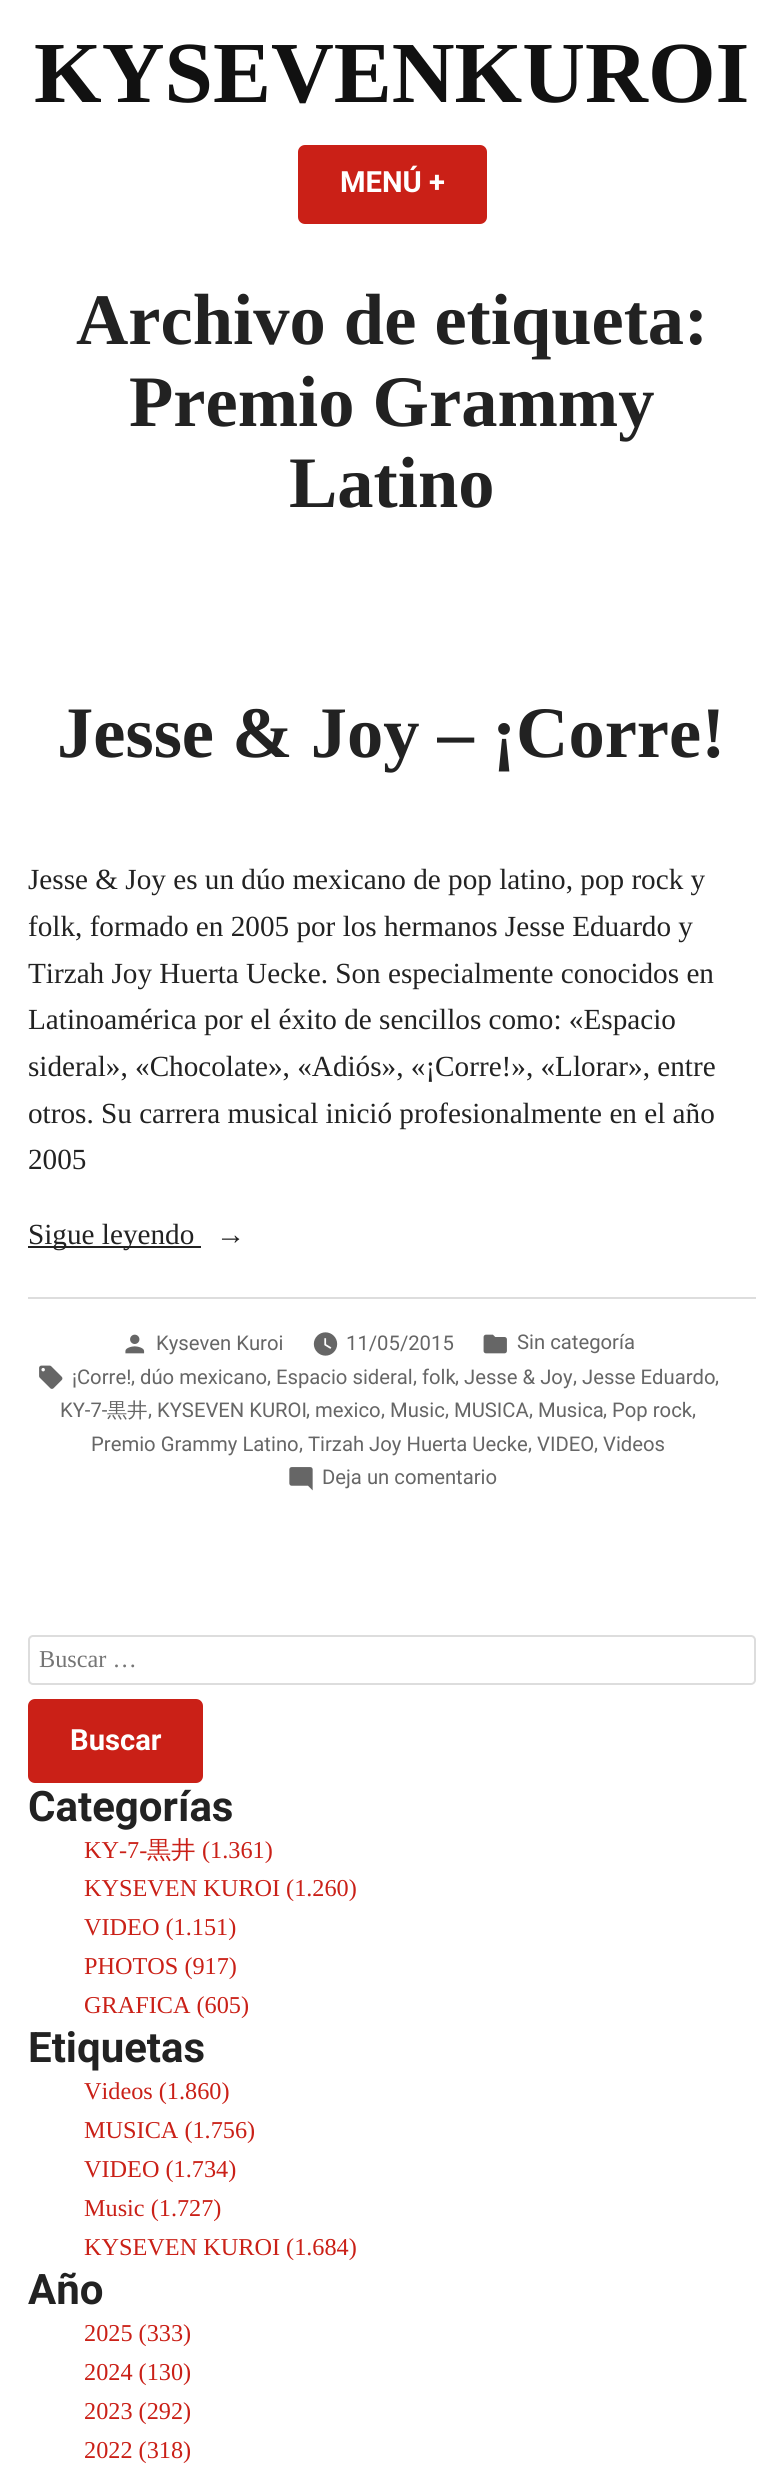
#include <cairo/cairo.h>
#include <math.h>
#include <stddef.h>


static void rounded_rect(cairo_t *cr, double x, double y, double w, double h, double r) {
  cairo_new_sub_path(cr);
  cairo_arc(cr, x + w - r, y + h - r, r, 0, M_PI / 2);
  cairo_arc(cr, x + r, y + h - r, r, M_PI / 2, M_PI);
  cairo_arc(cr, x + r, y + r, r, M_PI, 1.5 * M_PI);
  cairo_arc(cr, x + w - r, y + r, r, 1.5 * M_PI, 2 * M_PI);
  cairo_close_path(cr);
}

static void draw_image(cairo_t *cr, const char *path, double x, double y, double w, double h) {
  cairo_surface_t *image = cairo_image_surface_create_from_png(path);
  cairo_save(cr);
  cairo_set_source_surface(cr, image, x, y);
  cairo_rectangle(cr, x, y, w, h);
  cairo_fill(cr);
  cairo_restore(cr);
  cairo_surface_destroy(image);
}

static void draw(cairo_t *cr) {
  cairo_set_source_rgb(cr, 1, 1, 1);
  cairo_paint(cr);
  cairo_set_source_rgb(cr, 202 / 255.0, 32 / 255.0, 23 / 255.0);
  rounded_rect(cr, 298, 145, 189, 79, 7);
  cairo_fill(cr);
  cairo_set_source_rgb(cr, 34 / 255.0, 34 / 255.0, 34 / 255.0);
  cairo_rectangle(cr, 28, 1246, 173, 2);
  cairo_fill(cr);
  cairo_set_source_rgb(cr, 221 / 255.0, 221 / 255.0, 221 / 255.0);
  cairo_rectangle(cr, 28, 1297, 728, 2);
  cairo_fill(cr);
  draw_image(cr, "images/1.png", 125, 1334, 20, 20);
  draw_image(cr, "images/2.png", 313, 1332, 25, 24);
  draw_image(cr, "images/3.png", 483, 1334, 24, 20);
  draw_image(cr, "images/4.png", 39, 1365, 24, 24);
  draw_image(cr, "images/5.png", 289, 1467, 24, 24);
  rounded_rect(cr, 29, 1636, 726, 48, 4);
  cairo_stroke(cr);
  cairo_set_source_rgb(cr, 202 / 255.0, 32 / 255.0, 23 / 255.0);
  rounded_rect(cr, 28, 1699, 175, 84, 7);
  cairo_fill(cr);
  cairo_select_font_face(cr, "Liberation Serif", CAIRO_FONT_SLANT_NORMAL, CAIRO_FONT_WEIGHT_BOLD);
  cairo_set_font_size(cr, 87);
  cairo_set_source_rgb(cr, 17 / 255.0, 17 / 255.0, 17 / 255.0);
  cairo_move_to(cr, 34, 102);
  cairo_show_text(cr, "KYSEVENKUROI");
  cairo_select_font_face(cr, "Roboto", CAIRO_FONT_SLANT_NORMAL, CAIRO_FONT_WEIGHT_BOLD);
  cairo_set_font_size(cr, 29.2);
  cairo_set_source_rgb(cr, 1, 1, 1);
  cairo_move_to(cr, 340, 192);
  cairo_show_text(cr, "MENÚ +");
  cairo_select_font_face(cr, "Liberation Serif", CAIRO_FONT_SLANT_NORMAL, CAIRO_FONT_WEIGHT_BOLD);
  cairo_set_font_size(cr, 72.5);
  cairo_set_source_rgb(cr, 34 / 255.0, 34 / 255.0, 34 / 255.0);
  cairo_move_to(cr, 76, 344);
  cairo_show_text(cr, "Archivo de etiqueta:");
  cairo_move_to(cr, 129, 426);
  cairo_show_text(cr, "Premio Grammy");
  cairo_move_to(cr, 289, 507);
  cairo_show_text(cr, "Latino");
  cairo_move_to(cr, 57, 757);
  cairo_show_text(cr, "Jesse & Joy – ¡Corre!");
  cairo_select_font_face(cr, "Liberation Serif", CAIRO_FONT_SLANT_NORMAL, CAIRO_FONT_WEIGHT_NORMAL);
  cairo_set_font_size(cr, 29.2);
  cairo_move_to(cr, 28, 889);
  cairo_show_text(cr, "Jesse & Joy es un dúo mexicano de pop latino, pop rock y");
  cairo_move_to(cr, 28, 936);
  cairo_show_text(cr, "folk, formado en 2005 por los hermanos Jesse Eduardo y");
  cairo_move_to(cr, 28, 983);
  cairo_show_text(cr, "Tirzah Joy Huerta Uecke. Son especialmente conocidos en");
  cairo_move_to(cr, 28, 1029);
  cairo_show_text(cr, "Latinoamérica por el éxito de sencillos como: «Espacio");
  cairo_move_to(cr, 28, 1076);
  cairo_show_text(cr, "sideral», «Chocolate», «Adiós», «¡Corre!», «Llorar», entre");
  cairo_move_to(cr, 28, 1123);
  cairo_show_text(cr, "otros. Su carrera musical inició profesionalmente en el año");
  cairo_move_to(cr, 28, 1169);
  cairo_show_text(cr, "2005");
  cairo_move_to(cr, 28, 1244);
  cairo_show_text(cr, "Sigue leyendo");
  cairo_move_to(cr, 216, 1244);
  cairo_show_text(cr, "→");
  cairo_select_font_face(cr, "Roboto", CAIRO_FONT_SLANT_NORMAL, CAIRO_FONT_WEIGHT_NORMAL);
  cairo_set_font_size(cr, 20.25);
  cairo_set_source_rgb(cr, 102 / 255.0, 102 / 255.0, 102 / 255.0);
  cairo_move_to(cr, 156, 1350);
  cairo_show_text(cr, "Kyseven Kuroi");
  cairo_move_to(cr, 346, 1350);
  cairo_show_text(cr, "11/05/2015");
  cairo_move_to(cr, 517, 1349);
  cairo_show_text(cr, "Sin categoría");
  cairo_move_to(cr, 72, 1384);
  cairo_show_text(cr, "¡Corre!");
  cairo_move_to(cr, 131, 1383);
  cairo_show_text(cr, ",");
  cairo_move_to(cr, 140, 1384);
  cairo_show_text(cr, "dúo mexicano");
  cairo_move_to(cr, 267, 1383);
  cairo_show_text(cr, ",");
  cairo_move_to(cr, 276, 1384);
  cairo_show_text(cr, "Espacio sideral");
  cairo_move_to(cr, 413, 1383);
  cairo_show_text(cr, ",");
  cairo_move_to(cr, 422, 1384);
  cairo_show_text(cr, "folk");
  cairo_move_to(cr, 455, 1383);
  cairo_show_text(cr, ",");
  cairo_move_to(cr, 464, 1384);
  cairo_show_text(cr, "Jesse & Joy");
  cairo_move_to(cr, 573, 1383);
  cairo_show_text(cr, ",");
  cairo_move_to(cr, 582, 1384);
  cairo_show_text(cr, "Jesse Eduardo");
  cairo_move_to(cr, 715, 1383);
  cairo_show_text(cr, ",");
  cairo_move_to(cr, 60, 1417);
  cairo_show_text(cr, "KY-7-");
  cairo_select_font_face(cr, "WenQuanYi Zen Hei Medium", CAIRO_FONT_SLANT_NORMAL, CAIRO_FONT_WEIGHT_NORMAL);
  cairo_move_to(cr, 107, 1417);
  cairo_show_text(cr, "黒井");
  cairo_select_font_face(cr, "Roboto", CAIRO_FONT_SLANT_NORMAL, CAIRO_FONT_WEIGHT_NORMAL);
  cairo_move_to(cr, 148, 1416);
  cairo_show_text(cr, ",");
  cairo_move_to(cr, 157, 1417);
  cairo_show_text(cr, "KYSEVEN KUROI");
  cairo_move_to(cr, 306, 1416);
  cairo_show_text(cr, ",");
  cairo_move_to(cr, 315, 1417);
  cairo_show_text(cr, "mexico");
  cairo_move_to(cr, 381, 1416);
  cairo_show_text(cr, ",");
  cairo_move_to(cr, 390, 1417);
  cairo_show_text(cr, "Music");
  cairo_move_to(cr, 445, 1416);
  cairo_show_text(cr, ",");
  cairo_move_to(cr, 454, 1417);
  cairo_show_text(cr, "MUSICA");
  cairo_move_to(cr, 529, 1416);
  cairo_show_text(cr, ",");
  cairo_move_to(cr, 538, 1417);
  cairo_show_text(cr, "Musica");
  cairo_move_to(cr, 603, 1416);
  cairo_show_text(cr, ",");
  cairo_move_to(cr, 612, 1417);
  cairo_show_text(cr, "Pop rock");
  cairo_move_to(cr, 692, 1416);
  cairo_show_text(cr, ",");
  cairo_move_to(cr, 91, 1451);
  cairo_show_text(cr, "Premio Grammy Latino");
  cairo_move_to(cr, 299, 1450);
  cairo_show_text(cr, ",");
  cairo_move_to(cr, 308, 1451);
  cairo_show_text(cr, "Tirzah Joy Huerta Uecke");
  cairo_move_to(cr, 528, 1450);
  cairo_show_text(cr, ",");
  cairo_move_to(cr, 537, 1451);
  cairo_show_text(cr, "VIDEO");
  cairo_move_to(cr, 594, 1450);
  cairo_show_text(cr, ",");
  cairo_move_to(cr, 603, 1451);
  cairo_show_text(cr, "Videos");
  cairo_move_to(cr, 322, 1484);
  cairo_show_text(cr, "Deja un comentario");
  cairo_select_font_face(cr, "Liberation Serif", CAIRO_FONT_SLANT_NORMAL, CAIRO_FONT_WEIGHT_NORMAL);
  cairo_set_font_size(cr, 24.25);
  cairo_set_source_rgb(cr, 117 / 255.0, 117 / 255.0, 117 / 255.0);
  cairo_move_to(cr, 39, 1667);
  cairo_show_text(cr, "Buscar …");
  cairo_select_font_face(cr, "Roboto", CAIRO_FONT_SLANT_NORMAL, CAIRO_FONT_WEIGHT_BOLD);
  cairo_set_font_size(cr, 29.2);
  cairo_set_source_rgb(cr, 1, 1, 1);
  cairo_move_to(cr, 70, 1750);
  cairo_show_text(cr, "Buscar");
  cairo_set_font_size(cr, 42);
  cairo_set_source_rgb(cr, 34 / 255.0, 34 / 255.0, 34 / 255.0);
  cairo_move_to(cr, 28, 1821);
  cairo_show_text(cr, "Categorías");
  cairo_select_font_face(cr, "Liberation Serif", CAIRO_FONT_SLANT_NORMAL, CAIRO_FONT_WEIGHT_NORMAL);
  cairo_set_font_size(cr, 24.25);
  cairo_set_source_rgb(cr, 202 / 255.0, 32 / 255.0, 23 / 255.0);
  cairo_move_to(cr, 84, 1858);
  cairo_show_text(cr, "KY-7-");
  cairo_select_font_face(cr, "WenQuanYi Zen Hei Medium", CAIRO_FONT_SLANT_NORMAL, CAIRO_FONT_WEIGHT_NORMAL);
  cairo_move_to(cr, 147, 1858);
  cairo_show_text(cr, "黒井");
  cairo_select_font_face(cr, "Liberation Serif", CAIRO_FONT_SLANT_NORMAL, CAIRO_FONT_WEIGHT_NORMAL);
  cairo_move_to(cr, 202, 1858);
  cairo_show_text(cr, "(1.361)");
  cairo_move_to(cr, 84, 1896);
  cairo_show_text(cr, "KYSEVEN KUROI (1.260)");
  cairo_move_to(cr, 84, 1935);
  cairo_show_text(cr, "VIDEO (1.151)");
  cairo_move_to(cr, 84, 1974);
  cairo_show_text(cr, "PHOTOS (917)");
  cairo_move_to(cr, 84, 2013);
  cairo_show_text(cr, "GRAFICA (605)");
  cairo_select_font_face(cr, "Roboto", CAIRO_FONT_SLANT_NORMAL, CAIRO_FONT_WEIGHT_BOLD);
  cairo_set_font_size(cr, 42);
  cairo_set_source_rgb(cr, 34 / 255.0, 34 / 255.0, 34 / 255.0);
  cairo_move_to(cr, 28, 2062);
  cairo_show_text(cr, "Etiquetas");
  cairo_select_font_face(cr, "Liberation Serif", CAIRO_FONT_SLANT_NORMAL, CAIRO_FONT_WEIGHT_NORMAL);
  cairo_set_font_size(cr, 24.25);
  cairo_set_source_rgb(cr, 202 / 255.0, 32 / 255.0, 23 / 255.0);
  cairo_move_to(cr, 84, 2099);
  cairo_show_text(cr, "Videos (1.860)");
  cairo_move_to(cr, 84, 2138);
  cairo_show_text(cr, "MUSICA (1.756)");
  cairo_move_to(cr, 84, 2177);
  cairo_show_text(cr, "VIDEO (1.734)");
  cairo_move_to(cr, 84, 2216);
  cairo_show_text(cr, "Music (1.727)");
  cairo_move_to(cr, 84, 2255);
  cairo_show_text(cr, "KYSEVEN KUROI (1.684)");
  cairo_select_font_face(cr, "Roboto", CAIRO_FONT_SLANT_NORMAL, CAIRO_FONT_WEIGHT_BOLD);
  cairo_set_font_size(cr, 42);
  cairo_set_source_rgb(cr, 34 / 255.0, 34 / 255.0, 34 / 255.0);
  cairo_move_to(cr, 28, 2304);
  cairo_show_text(cr, "Año");
  cairo_select_font_face(cr, "Liberation Serif", CAIRO_FONT_SLANT_NORMAL, CAIRO_FONT_WEIGHT_NORMAL);
  cairo_set_font_size(cr, 24.25);
  cairo_set_source_rgb(cr, 202 / 255.0, 32 / 255.0, 23 / 255.0);
  cairo_move_to(cr, 84, 2341);
  cairo_show_text(cr, "2025 (333)");
  cairo_move_to(cr, 84, 2380);
  cairo_show_text(cr, "2024 (130)");
  cairo_move_to(cr, 84, 2419);
  cairo_show_text(cr, "2023 (292)");
  cairo_move_to(cr, 84, 2458);
  cairo_show_text(cr, "2022 (318)");
}

int main(void) {
  cairo_surface_t *surface = cairo_image_surface_create(CAIRO_FORMAT_RGB24, 784, 2482);
  cairo_t *cr = cairo_create(surface);
  cairo_font_options_t *options = cairo_font_options_create();
  cairo_font_options_set_hint_metrics(options, CAIRO_HINT_METRICS_OFF);
  cairo_font_options_set_hint_style(options, CAIRO_HINT_STYLE_NONE);
  cairo_set_font_options(cr, options);
  cairo_set_miter_limit(cr, 4);
  draw(cr);
  cairo_surface_write_to_png(surface, "out.png");
  cairo_font_options_destroy(options);
  cairo_destroy(cr);
  cairo_surface_destroy(surface);
  return 0;
}
